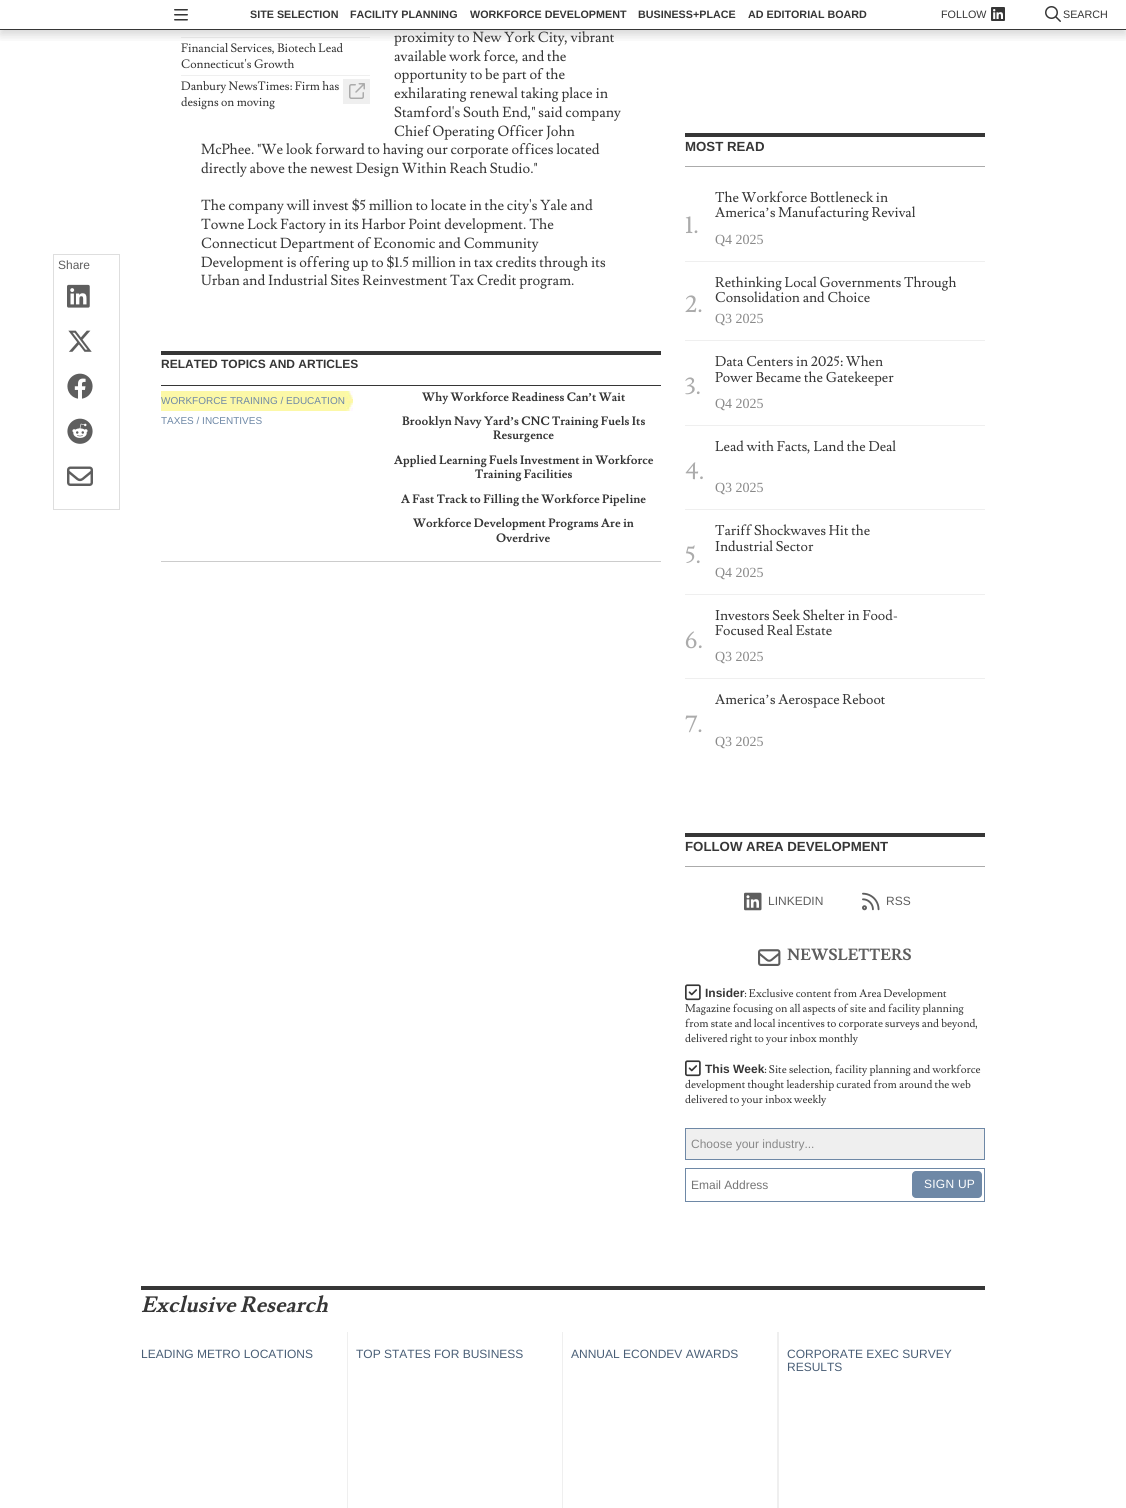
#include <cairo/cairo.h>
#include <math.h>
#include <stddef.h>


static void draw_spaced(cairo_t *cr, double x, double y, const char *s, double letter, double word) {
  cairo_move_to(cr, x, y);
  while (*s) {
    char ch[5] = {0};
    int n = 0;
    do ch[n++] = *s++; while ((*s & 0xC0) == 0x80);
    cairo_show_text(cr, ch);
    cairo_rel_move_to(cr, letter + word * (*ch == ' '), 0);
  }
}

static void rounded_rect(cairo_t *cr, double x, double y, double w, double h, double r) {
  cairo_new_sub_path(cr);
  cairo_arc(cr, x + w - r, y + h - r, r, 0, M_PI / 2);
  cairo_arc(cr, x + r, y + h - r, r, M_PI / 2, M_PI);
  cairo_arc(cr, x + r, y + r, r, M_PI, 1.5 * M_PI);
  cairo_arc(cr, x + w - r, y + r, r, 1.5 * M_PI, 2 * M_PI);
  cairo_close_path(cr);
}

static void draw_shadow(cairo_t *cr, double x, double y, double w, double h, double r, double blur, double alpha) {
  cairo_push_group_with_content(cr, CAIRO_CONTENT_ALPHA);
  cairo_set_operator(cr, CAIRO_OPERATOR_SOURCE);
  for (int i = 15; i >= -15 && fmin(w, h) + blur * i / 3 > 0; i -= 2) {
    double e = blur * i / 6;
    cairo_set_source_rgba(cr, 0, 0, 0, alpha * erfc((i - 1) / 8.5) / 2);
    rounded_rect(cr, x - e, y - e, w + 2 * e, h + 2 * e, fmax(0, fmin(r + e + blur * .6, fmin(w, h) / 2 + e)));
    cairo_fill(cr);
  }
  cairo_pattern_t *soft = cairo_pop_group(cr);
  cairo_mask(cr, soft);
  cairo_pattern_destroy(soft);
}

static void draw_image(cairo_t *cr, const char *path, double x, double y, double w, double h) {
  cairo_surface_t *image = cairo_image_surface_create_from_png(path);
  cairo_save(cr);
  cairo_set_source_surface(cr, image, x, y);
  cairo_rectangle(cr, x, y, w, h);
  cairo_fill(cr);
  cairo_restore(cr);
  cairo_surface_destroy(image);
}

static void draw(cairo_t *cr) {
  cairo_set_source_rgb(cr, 1, 1, 1);
  cairo_paint(cr);
  cairo_set_source_rgb(cr, 239 / 255.0, 239 / 255.0, 239 / 255.0);
  cairo_rectangle(cr, 181, 37, 189, 1);
  cairo_fill(cr);
  cairo_save(cr);
  cairo_rectangle(cr, 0, 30, 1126, 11);
  cairo_clip(cr);
  cairo_set_source_rgb(cr, 53 / 255.0, 53 / 255.0, 53 / 255.0);
  draw_shadow(cr, 0, 5, 1126, 30, 0, 5, 0.2);
  cairo_restore(cr);
  cairo_set_source_rgb(cr, 54 / 255.0, 54 / 255.0, 54 / 255.0);
  cairo_rectangle(cr, 0, 29, 1126, 1);
  cairo_fill(cr);
  draw_image(cr, "images/1.png", 174, 9, 14, 12);
  draw_image(cr, "images/2.png", 991, 7, 14, 14);
  draw_image(cr, "images/3.png", 1045, 6, 16, 16);
  cairo_rectangle(cr, 53.5, 254.5, 66, 255);
  cairo_set_source_rgb(cr, 222 / 255.0, 222 / 255.0, 222 / 255.0);
  cairo_set_line_width(cr, 1);
  cairo_stroke(cr);
  draw_image(cr, "images/4.png", 67, 284, 23, 24);
  draw_image(cr, "images/5.png", 68, 330, 24, 22);
  draw_image(cr, "images/6.png", 67, 373, 26, 26);
  draw_image(cr, "images/7.png", 67, 418, 26, 26);
  draw_image(cr, "images/8.png", 67, 466, 26, 20);
  cairo_set_source_rgb(cr, 239 / 255.0, 239 / 255.0, 239 / 255.0);
  cairo_rectangle(cr, 181, 75, 189, 1);
  cairo_fill(cr);
  cairo_rectangle(cr, 343, 79, 27, 25);
  cairo_fill(cr);
  draw_image(cr, "images/9.png", 349, 83, 16, 16);
  cairo_set_source_rgb(cr, 204 / 255.0, 204 / 255.0, 204 / 255.0);
  cairo_rectangle(cr, 161, 561, 500, 1);
  cairo_fill(cr);
  cairo_set_source_rgb(cr, 54 / 255.0, 54 / 255.0, 54 / 255.0);
  cairo_rectangle(cr, 161, 351, 500, 4);
  cairo_fill(cr);
  cairo_rectangle(cr, 161, 385, 500, 1);
  cairo_fill(cr);
  draw_image(cr, "images/10.png", 346, 391, 7, 20);
  cairo_set_source_rgb(cr, 252 / 255.0, 248 / 255.0, 167 / 255.0);
  cairo_rectangle(cr, 161, 391, 185, 20);
  cairo_fill(cr);
  cairo_set_source_rgb(cr, 54 / 255.0, 54 / 255.0, 54 / 255.0);
  cairo_rectangle(cr, 685, 133, 300, 4);
  cairo_fill(cr);
  cairo_set_source_rgb(cr, 171 / 255.0, 171 / 255.0, 171 / 255.0);
  cairo_rectangle(cr, 685, 166, 300, 1);
  cairo_fill(cr);
  cairo_set_source_rgb(cr, 239 / 255.0, 239 / 255.0, 239 / 255.0);
  cairo_rectangle(cr, 685, 261, 300, 1);
  cairo_fill(cr);
  cairo_rectangle(cr, 685, 340, 300, 1);
  cairo_fill(cr);
  cairo_rectangle(cr, 685, 425, 300, 1);
  cairo_fill(cr);
  cairo_rectangle(cr, 685, 509, 300, 1);
  cairo_fill(cr);
  cairo_rectangle(cr, 685, 594, 300, 1);
  cairo_fill(cr);
  cairo_rectangle(cr, 685, 678, 300, 1);
  cairo_fill(cr);
  cairo_set_source_rgb(cr, 54 / 255.0, 54 / 255.0, 54 / 255.0);
  cairo_rectangle(cr, 685, 833, 300, 4);
  cairo_fill(cr);
  cairo_set_source_rgb(cr, 171 / 255.0, 171 / 255.0, 171 / 255.0);
  cairo_rectangle(cr, 685, 866, 300, 1);
  cairo_fill(cr);
  draw_image(cr, "images/11.png", 744, 892, 18, 19);
  draw_image(cr, "images/12.png", 862, 892, 18, 19);
  draw_image(cr, "images/13.png", 758, 949, 23, 17);
  draw_image(cr, "images/14.png", 685, 984, 16, 17);
  draw_image(cr, "images/14.png", 685, 1060, 16, 17);
  cairo_set_source_rgb(cr, 239 / 255.0, 239 / 255.0, 239 / 255.0);
  cairo_rectangle(cr, 685.5, 1128.5, 299, 31);
  cairo_fill_preserve(cr);
  cairo_set_source_rgb(cr, 110 / 255.0, 136 / 255.0, 166 / 255.0);
  cairo_stroke(cr);
  cairo_rectangle(cr, 685.5, 1168.5, 299, 33);
  cairo_stroke(cr);
  rounded_rect(cr, 912, 1171, 70, 27, 4);
  cairo_fill(cr);
  cairo_set_source_rgb(cr, 54 / 255.0, 54 / 255.0, 54 / 255.0);
  cairo_rectangle(cr, 141, 1286, 844, 4);
  cairo_fill(cr);
  cairo_set_source_rgb(cr, 239 / 255.0, 239 / 255.0, 239 / 255.0);
  cairo_rectangle(cr, 347, 1332, 1, 176);
  cairo_fill(cr);
  cairo_rectangle(cr, 562, 1332, 1, 176);
  cairo_fill(cr);
  cairo_rectangle(cr, 777, 1332, 2, 176);
  cairo_fill(cr);
  cairo_select_font_face(cr, "Liberation Sans", CAIRO_FONT_SLANT_NORMAL, CAIRO_FONT_WEIGHT_BOLD);
  cairo_set_font_size(cr, 10.75);
  cairo_set_source_rgb(cr, 54 / 255.0, 54 / 255.0, 54 / 255.0);
  cairo_move_to(cr, 250, 18);
  cairo_show_text(cr, "SITE SELECTION");
  cairo_move_to(cr, 350, 18);
  cairo_show_text(cr, "FACILITY PLANNING");
  cairo_move_to(cr, 470, 18);
  cairo_show_text(cr, "WORKFORCE DEVELOPMENT");
  cairo_move_to(cr, 638, 18);
  cairo_show_text(cr, "BUSINESS+PLACE");
  cairo_move_to(cr, 748, 18);
  cairo_show_text(cr, "AD EDITORIAL BOARD");
  cairo_select_font_face(cr, "Liberation Sans", CAIRO_FONT_SLANT_NORMAL, CAIRO_FONT_WEIGHT_NORMAL);
  cairo_move_to(cr, 941, 18);
  cairo_show_text(cr, "FOLLOW");
  cairo_move_to(cr, 1063, 18);
  cairo_show_text(cr, "SEARCH");
  cairo_set_font_size(cr, 12);
  cairo_set_source_rgb(cr, 94 / 255.0, 94 / 255.0, 94 / 255.0);
  cairo_move_to(cr, 58, 269);
  cairo_show_text(cr, "Share");
  cairo_select_font_face(cr, "Lusitana", CAIRO_FONT_SLANT_NORMAL, CAIRO_FONT_WEIGHT_NORMAL);
  cairo_set_font_size(cr, 14.4);
  cairo_set_source_rgb(cr, 54 / 255.0, 54 / 255.0, 54 / 255.0);
  cairo_move_to(cr, 394, 42);
  cairo_show_text(cr, "proximity to New York City, vibrant");
  cairo_set_font_size(cr, 12);
  cairo_move_to(cr, 181, 52);
  cairo_show_text(cr, "Financial Services, Biotech Lead");
  cairo_move_to(cr, 181, 68);
  cairo_show_text(cr, "Connecticut's Growth");
  cairo_move_to(cr, 181, 90);
  cairo_show_text(cr, "Danbury NewsTimes: Firm has");
  cairo_move_to(cr, 181, 106);
  cairo_show_text(cr, "designs on moving");
  cairo_set_font_size(cr, 14.4);
  cairo_move_to(cr, 394, 61);
  cairo_show_text(cr, "available work force, and the");
  cairo_move_to(cr, 394, 79);
  cairo_show_text(cr, "opportunity to be part of the");
  cairo_move_to(cr, 394, 98);
  cairo_show_text(cr, "exhilarating renewal taking place in");
  cairo_move_to(cr, 394, 117);
  cairo_show_text(cr, "Stamford's South End,\" said company");
  cairo_move_to(cr, 394, 136);
  cairo_show_text(cr, "Chief Operating Officer John");
  cairo_move_to(cr, 201, 154);
  cairo_show_text(cr, "McPhee. \"We look forward to having our corporate offices located");
  cairo_move_to(cr, 201, 173);
  cairo_show_text(cr, "directly above the newest Design Within Reach Studio.\"");
  cairo_move_to(cr, 201, 210);
  cairo_show_text(cr, "The company will invest $5 million to locate in the city's Yale and");
  cairo_move_to(cr, 201, 229);
  cairo_show_text(cr, "Towne Lock Factory in its Harbor Point development. The");
  cairo_move_to(cr, 201, 248);
  cairo_show_text(cr, "Connecticut Department of Economic and Community");
  cairo_move_to(cr, 201, 267);
  cairo_show_text(cr, "Development is offering up to $1.5 million in tax credits through its");
  cairo_move_to(cr, 201, 285);
  cairo_show_text(cr, "Urban and Industrial Sites Reinvestment Tax Credit program.");
  cairo_select_font_face(cr, "Liberation Sans", CAIRO_FONT_SLANT_NORMAL, CAIRO_FONT_WEIGHT_BOLD);
  cairo_set_font_size(cr, 12);
  cairo_move_to(cr, 161, 368);
  cairo_show_text(cr, "RELATED TOPICS AND ARTICLES");
  cairo_select_font_face(cr, "Liberation Sans", CAIRO_FONT_SLANT_NORMAL, CAIRO_FONT_WEIGHT_NORMAL);
  cairo_set_font_size(cr, 10);
  cairo_set_source_rgb(cr, 110 / 255.0, 136 / 255.0, 166 / 255.0);
  cairo_move_to(cr, 161, 404);
  cairo_show_text(cr, "WORKFORCE TRAINING / EDUCATION");
  cairo_move_to(cr, 161, 424);
  cairo_show_text(cr, "TAXES / INCENTIVES");
  cairo_select_font_face(cr, "Lusitana", CAIRO_FONT_SLANT_NORMAL, CAIRO_FONT_WEIGHT_BOLD);
  cairo_set_font_size(cr, 12);
  cairo_set_source_rgb(cr, 54 / 255.0, 54 / 255.0, 54 / 255.0);
  cairo_move_to(cr, 422, 401);
  cairo_show_text(cr, "Why Workforce Readiness Can");
  cairo_select_font_face(cr, "Liberation Serif", CAIRO_FONT_SLANT_NORMAL, CAIRO_FONT_WEIGHT_BOLD);
  cairo_move_to(cr, 588, 401);
  cairo_show_text(cr, "’");
  cairo_select_font_face(cr, "Lusitana", CAIRO_FONT_SLANT_NORMAL, CAIRO_FONT_WEIGHT_BOLD);
  cairo_move_to(cr, 592, 401);
  cairo_show_text(cr, "t Wait");
  cairo_move_to(cr, 402, 425);
  cairo_show_text(cr, "Brooklyn Navy Yard");
  cairo_select_font_face(cr, "Liberation Serif", CAIRO_FONT_SLANT_NORMAL, CAIRO_FONT_WEIGHT_BOLD);
  cairo_move_to(cr, 510, 425);
  cairo_show_text(cr, "’");
  cairo_select_font_face(cr, "Lusitana", CAIRO_FONT_SLANT_NORMAL, CAIRO_FONT_WEIGHT_BOLD);
  cairo_move_to(cr, 514, 425);
  cairo_show_text(cr, "s CNC Training Fuels Its");
  cairo_move_to(cr, 493, 439);
  cairo_show_text(cr, "Resurgence");
  cairo_move_to(cr, 394, 464);
  cairo_show_text(cr, "Applied Learning Fuels Investment in Workforce");
  cairo_move_to(cr, 475, 478);
  cairo_show_text(cr, "Training Facilities");
  cairo_move_to(cr, 401, 503);
  cairo_show_text(cr, "A Fast Track to Filling the Workforce Pipeline");
  cairo_move_to(cr, 413, 527);
  cairo_show_text(cr, "Workforce Development Programs Are in");
  cairo_move_to(cr, 496, 542);
  cairo_show_text(cr, "Overdrive");
  cairo_select_font_face(cr, "Liberation Sans", CAIRO_FONT_SLANT_NORMAL, CAIRO_FONT_WEIGHT_BOLD);
  cairo_set_font_size(cr, 13.25);
  cairo_move_to(cr, 685, 151);
  cairo_show_text(cr, "MOST READ");
  cairo_select_font_face(cr, "Lusitana", CAIRO_FONT_SLANT_NORMAL, CAIRO_FONT_WEIGHT_NORMAL);
  cairo_set_font_size(cr, 24);
  cairo_set_source_rgb(cr, 171 / 255.0, 171 / 255.0, 171 / 255.0);
  cairo_move_to(cr, 685, 233);
  cairo_show_text(cr, "1.");
  cairo_set_font_size(cr, 14);
  cairo_set_source_rgb(cr, 54 / 255.0, 54 / 255.0, 54 / 255.0);
  cairo_move_to(cr, 715, 202);
  cairo_show_text(cr, "The Workforce Bottleneck in");
  cairo_move_to(cr, 715, 217);
  cairo_show_text(cr, "America");
  cairo_select_font_face(cr, "Liberation Serif", CAIRO_FONT_SLANT_NORMAL, CAIRO_FONT_WEIGHT_NORMAL);
  cairo_move_to(cr, 765, 217);
  cairo_show_text(cr, "’");
  cairo_select_font_face(cr, "Lusitana", CAIRO_FONT_SLANT_NORMAL, CAIRO_FONT_WEIGHT_NORMAL);
  cairo_move_to(cr, 770, 217);
  cairo_show_text(cr, "s Manufacturing Revival");
  cairo_select_font_face(cr, "Liberation Serif", CAIRO_FONT_SLANT_NORMAL, CAIRO_FONT_WEIGHT_NORMAL);
  cairo_set_source_rgb(cr, 137 / 255.0, 137 / 255.0, 137 / 255.0);
  cairo_move_to(cr, 715, 244);
  cairo_show_text(cr, "Q4 2025");
  cairo_select_font_face(cr, "Lusitana", CAIRO_FONT_SLANT_NORMAL, CAIRO_FONT_WEIGHT_NORMAL);
  cairo_set_font_size(cr, 24);
  cairo_set_source_rgb(cr, 171 / 255.0, 171 / 255.0, 171 / 255.0);
  cairo_move_to(cr, 685, 312);
  cairo_show_text(cr, "2.");
  cairo_set_font_size(cr, 14);
  cairo_set_source_rgb(cr, 54 / 255.0, 54 / 255.0, 54 / 255.0);
  cairo_move_to(cr, 715, 287);
  cairo_show_text(cr, "Rethinking Local Governments Through");
  cairo_move_to(cr, 715, 302);
  cairo_show_text(cr, "Consolidation and Choice");
  cairo_select_font_face(cr, "Liberation Serif", CAIRO_FONT_SLANT_NORMAL, CAIRO_FONT_WEIGHT_NORMAL);
  cairo_set_source_rgb(cr, 137 / 255.0, 137 / 255.0, 137 / 255.0);
  cairo_move_to(cr, 715, 323);
  cairo_show_text(cr, "Q3 2025");
  cairo_select_font_face(cr, "Lusitana", CAIRO_FONT_SLANT_NORMAL, CAIRO_FONT_WEIGHT_NORMAL);
  cairo_set_font_size(cr, 24);
  cairo_set_source_rgb(cr, 171 / 255.0, 171 / 255.0, 171 / 255.0);
  cairo_move_to(cr, 685, 394);
  cairo_show_text(cr, "3.");
  cairo_set_font_size(cr, 14);
  cairo_set_source_rgb(cr, 54 / 255.0, 54 / 255.0, 54 / 255.0);
  cairo_move_to(cr, 715, 366);
  cairo_show_text(cr, "Data Centers in 2025: When");
  cairo_move_to(cr, 715, 382);
  cairo_show_text(cr, "Power Became the Gatekeeper");
  cairo_select_font_face(cr, "Liberation Serif", CAIRO_FONT_SLANT_NORMAL, CAIRO_FONT_WEIGHT_NORMAL);
  cairo_set_source_rgb(cr, 137 / 255.0, 137 / 255.0, 137 / 255.0);
  cairo_move_to(cr, 715, 408);
  cairo_show_text(cr, "Q4 2025");
  cairo_select_font_face(cr, "Lusitana", CAIRO_FONT_SLANT_NORMAL, CAIRO_FONT_WEIGHT_NORMAL);
  cairo_set_font_size(cr, 24);
  cairo_set_source_rgb(cr, 171 / 255.0, 171 / 255.0, 171 / 255.0);
  cairo_move_to(cr, 685, 479);
  cairo_show_text(cr, "4.");
  cairo_set_font_size(cr, 14);
  cairo_set_source_rgb(cr, 54 / 255.0, 54 / 255.0, 54 / 255.0);
  cairo_move_to(cr, 715, 451);
  cairo_show_text(cr, "Lead with Facts, Land the Deal");
  cairo_select_font_face(cr, "Liberation Serif", CAIRO_FONT_SLANT_NORMAL, CAIRO_FONT_WEIGHT_NORMAL);
  cairo_set_source_rgb(cr, 137 / 255.0, 137 / 255.0, 137 / 255.0);
  cairo_move_to(cr, 715, 492);
  cairo_show_text(cr, "Q3 2025");
  cairo_select_font_face(cr, "Lusitana", CAIRO_FONT_SLANT_NORMAL, CAIRO_FONT_WEIGHT_NORMAL);
  cairo_set_font_size(cr, 24);
  cairo_set_source_rgb(cr, 171 / 255.0, 171 / 255.0, 171 / 255.0);
  cairo_move_to(cr, 685, 563);
  cairo_show_text(cr, "5.");
  cairo_set_font_size(cr, 14);
  cairo_set_source_rgb(cr, 54 / 255.0, 54 / 255.0, 54 / 255.0);
  cairo_move_to(cr, 715, 535);
  cairo_show_text(cr, "Tariff Shockwaves Hit the");
  cairo_move_to(cr, 715, 551);
  cairo_show_text(cr, "Industrial Sector");
  cairo_select_font_face(cr, "Liberation Serif", CAIRO_FONT_SLANT_NORMAL, CAIRO_FONT_WEIGHT_NORMAL);
  cairo_set_source_rgb(cr, 137 / 255.0, 137 / 255.0, 137 / 255.0);
  cairo_move_to(cr, 715, 577);
  cairo_show_text(cr, "Q4 2025");
  cairo_select_font_face(cr, "Lusitana", CAIRO_FONT_SLANT_NORMAL, CAIRO_FONT_WEIGHT_NORMAL);
  cairo_set_font_size(cr, 24);
  cairo_set_source_rgb(cr, 171 / 255.0, 171 / 255.0, 171 / 255.0);
  cairo_move_to(cr, 685, 648);
  cairo_show_text(cr, "6.");
  cairo_set_font_size(cr, 14);
  cairo_set_source_rgb(cr, 54 / 255.0, 54 / 255.0, 54 / 255.0);
  cairo_move_to(cr, 715, 620);
  cairo_show_text(cr, "Investors Seek Shelter in Food-");
  cairo_move_to(cr, 715, 635);
  cairo_show_text(cr, "Focused Real Estate");
  cairo_select_font_face(cr, "Liberation Serif", CAIRO_FONT_SLANT_NORMAL, CAIRO_FONT_WEIGHT_NORMAL);
  cairo_set_source_rgb(cr, 137 / 255.0, 137 / 255.0, 137 / 255.0);
  cairo_move_to(cr, 715, 661);
  cairo_show_text(cr, "Q3 2025");
  cairo_select_font_face(cr, "Lusitana", CAIRO_FONT_SLANT_NORMAL, CAIRO_FONT_WEIGHT_NORMAL);
  cairo_set_font_size(cr, 24);
  cairo_set_source_rgb(cr, 171 / 255.0, 171 / 255.0, 171 / 255.0);
  cairo_move_to(cr, 685, 732);
  cairo_show_text(cr, "7.");
  cairo_set_font_size(cr, 14);
  cairo_set_source_rgb(cr, 54 / 255.0, 54 / 255.0, 54 / 255.0);
  cairo_move_to(cr, 715, 704);
  cairo_show_text(cr, "America");
  cairo_select_font_face(cr, "Liberation Serif", CAIRO_FONT_SLANT_NORMAL, CAIRO_FONT_WEIGHT_NORMAL);
  cairo_move_to(cr, 765, 704);
  cairo_show_text(cr, "’");
  cairo_select_font_face(cr, "Lusitana", CAIRO_FONT_SLANT_NORMAL, CAIRO_FONT_WEIGHT_NORMAL);
  cairo_move_to(cr, 770, 704);
  cairo_show_text(cr, "s Aerospace Reboot");
  cairo_select_font_face(cr, "Liberation Serif", CAIRO_FONT_SLANT_NORMAL, CAIRO_FONT_WEIGHT_NORMAL);
  cairo_set_source_rgb(cr, 137 / 255.0, 137 / 255.0, 137 / 255.0);
  cairo_move_to(cr, 715, 746);
  cairo_show_text(cr, "Q3 2025");
  cairo_select_font_face(cr, "Liberation Sans", CAIRO_FONT_SLANT_NORMAL, CAIRO_FONT_WEIGHT_BOLD);
  cairo_set_font_size(cr, 13.25);
  cairo_set_source_rgb(cr, 54 / 255.0, 54 / 255.0, 54 / 255.0);
  cairo_move_to(cr, 685, 851);
  cairo_show_text(cr, "FOLLOW AREA DEVELOPMENT");
  cairo_select_font_face(cr, "Liberation Sans", CAIRO_FONT_SLANT_NORMAL, CAIRO_FONT_WEIGHT_NORMAL);
  cairo_set_font_size(cr, 12);
  cairo_set_source_rgb(cr, 94 / 255.0, 94 / 255.0, 94 / 255.0);
  cairo_move_to(cr, 768, 905);
  cairo_show_text(cr, "LINKEDIN");
  cairo_move_to(cr, 886, 905);
  cairo_show_text(cr, "RSS");
  cairo_select_font_face(cr, "Lusitana", CAIRO_FONT_SLANT_NORMAL, CAIRO_FONT_WEIGHT_BOLD);
  cairo_set_font_size(cr, 16);
  cairo_move_to(cr, 787, 960);
  cairo_show_text(cr, "NEWSLETTERS");
  cairo_select_font_face(cr, "Liberation Sans", CAIRO_FONT_SLANT_NORMAL, CAIRO_FONT_WEIGHT_BOLD);
  cairo_set_font_size(cr, 12);
  cairo_set_source_rgb(cr, 54 / 255.0, 54 / 255.0, 54 / 255.0);
  cairo_move_to(cr, 705, 997);
  cairo_show_text(cr, "Insider");
  cairo_select_font_face(cr, "Lusitana", CAIRO_FONT_SLANT_NORMAL, CAIRO_FONT_WEIGHT_NORMAL);
  cairo_set_font_size(cr, 11);
  cairo_move_to(cr, 744, 997);
  cairo_show_text(cr, ": Exclusive content from Area Development");
  cairo_move_to(cr, 685, 1012);
  cairo_show_text(cr, "Magazine focusing on all aspects of site and facility planning");
  cairo_move_to(cr, 685, 1027);
  cairo_show_text(cr, "from state and local incentives to corporate surveys and beyond,");
  cairo_move_to(cr, 685, 1042);
  cairo_show_text(cr, "delivered right to your inbox monthly");
  cairo_select_font_face(cr, "Liberation Sans", CAIRO_FONT_SLANT_NORMAL, CAIRO_FONT_WEIGHT_BOLD);
  cairo_set_font_size(cr, 12);
  cairo_move_to(cr, 705, 1073);
  cairo_show_text(cr, "This Week");
  cairo_select_font_face(cr, "Lusitana", CAIRO_FONT_SLANT_NORMAL, CAIRO_FONT_WEIGHT_NORMAL);
  cairo_set_font_size(cr, 11);
  cairo_move_to(cr, 764, 1073);
  cairo_show_text(cr, ": Site selection, facility planning and workforce");
  cairo_move_to(cr, 685, 1088);
  cairo_show_text(cr, "development thought leadership curated from around the web");
  cairo_move_to(cr, 685, 1103);
  cairo_show_text(cr, "delivered to your inbox weekly");
  cairo_select_font_face(cr, "Liberation Sans", CAIRO_FONT_SLANT_NORMAL, CAIRO_FONT_WEIGHT_NORMAL);
  cairo_set_font_size(cr, 12);
  cairo_set_source_rgb(cr, 137 / 255.0, 137 / 255.0, 137 / 255.0);
  cairo_move_to(cr, 691, 1148);
  cairo_show_text(cr, "Choose your industry...");
  cairo_set_source_rgb(cr, 117 / 255.0, 117 / 255.0, 117 / 255.0);
  cairo_move_to(cr, 691, 1189);
  cairo_show_text(cr, "Email Address");
  cairo_set_source_rgb(cr, 1, 1, 1);
  draw_spaced(cr, 924, 1188, "SIGN UP", 0.25, 0);
  cairo_select_font_face(cr, "Lusitana", CAIRO_FONT_SLANT_ITALIC, CAIRO_FONT_WEIGHT_BOLD);
  cairo_set_font_size(cr, 22);
  cairo_set_source_rgb(cr, 54 / 255.0, 54 / 255.0, 54 / 255.0);
  cairo_move_to(cr, 141, 1312);
  cairo_show_text(cr, "Exclusive Research");
  cairo_select_font_face(cr, "Liberation Sans", CAIRO_FONT_SLANT_NORMAL, CAIRO_FONT_WEIGHT_NORMAL);
  cairo_set_font_size(cr, 12);
  cairo_set_source_rgb(cr, 73 / 255.0, 94 / 255.0, 118 / 255.0);
  cairo_move_to(cr, 141, 1358);
  cairo_show_text(cr, "LEADING METRO LOCATIONS");
  cairo_move_to(cr, 356, 1358);
  cairo_show_text(cr, "TOP STATES FOR BUSINESS");
  cairo_move_to(cr, 571, 1358);
  cairo_show_text(cr, "ANNUAL ECONDEV AWARDS");
  cairo_move_to(cr, 787, 1358);
  cairo_show_text(cr, "CORPORATE EXEC SURVEY");
  cairo_move_to(cr, 787, 1371);
  cairo_show_text(cr, "RESULTS");
}

int main(void) {
  cairo_surface_t *surface = cairo_image_surface_create(CAIRO_FORMAT_RGB24, 1126, 1508);
  cairo_t *cr = cairo_create(surface);
  cairo_font_options_t *options = cairo_font_options_create();
  cairo_font_options_set_hint_metrics(options, CAIRO_HINT_METRICS_OFF);
  cairo_font_options_set_hint_style(options, CAIRO_HINT_STYLE_NONE);
  cairo_set_font_options(cr, options);
  cairo_set_miter_limit(cr, 4);
  draw(cr);
  cairo_surface_write_to_png(surface, "out.png");
  cairo_font_options_destroy(options);
  cairo_destroy(cr);
  cairo_surface_destroy(surface);
  return 0;
}
